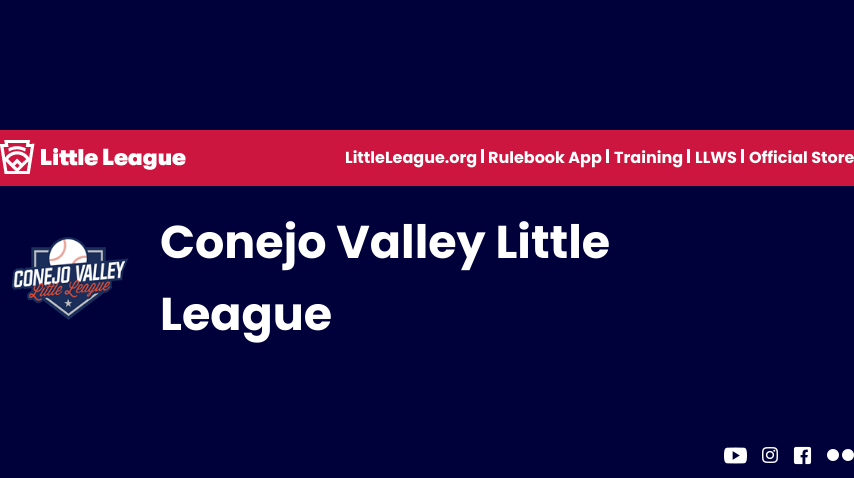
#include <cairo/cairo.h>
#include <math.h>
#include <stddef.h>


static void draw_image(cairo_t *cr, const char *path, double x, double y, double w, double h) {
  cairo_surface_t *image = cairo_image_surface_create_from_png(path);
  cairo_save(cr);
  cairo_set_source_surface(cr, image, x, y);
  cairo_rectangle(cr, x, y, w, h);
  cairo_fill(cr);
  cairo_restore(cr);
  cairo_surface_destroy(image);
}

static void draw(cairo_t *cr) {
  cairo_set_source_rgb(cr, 0, 1 / 255.0, 58 / 255.0);
  cairo_paint(cr);
  cairo_set_source_rgb(cr, 205 / 255.0, 22 / 255.0, 63 / 255.0);
  cairo_rectangle(cr, 0, 130, 854, 56);
  cairo_fill(cr);
  draw_image(cr, "images/1.png", 0, 140, 186, 34);
  cairo_set_source_rgb(cr, 1, 1, 1);
  cairo_rectangle(cr, 481, 149, 3, 14);
  cairo_fill(cr);
  cairo_rectangle(cr, 606, 149, 3, 14);
  cairo_fill(cr);
  cairo_rectangle(cr, 687, 149, 3, 14);
  cairo_fill(cr);
  cairo_rectangle(cr, 741, 149, 3, 14);
  cairo_fill(cr);
  draw_image(cr, "images/2.png", 11, 237, 118, 83);
  draw_image(cr, "images/3.png", 724, 447, 23, 17);
  draw_image(cr, "images/4.png", 762, 447, 16, 16);
  draw_image(cr, "images/5.png", 793, 446, 19, 19);
  cairo_arc(cr, 833, 455, 6, 0, 2 * M_PI);
  cairo_fill(cr);
  cairo_arc(cr, 848, 455, 6, 0, 2 * M_PI);
  cairo_fill(cr);
  cairo_select_font_face(cr, "Poppins", CAIRO_FONT_SLANT_NORMAL, CAIRO_FONT_WEIGHT_BOLD);
  cairo_set_font_size(cr, 16);
  cairo_move_to(cr, 345, 163);
  cairo_show_text(cr, "LittleLeague.org");
  cairo_move_to(cr, 488, 163);
  cairo_show_text(cr, "Rulebook App");
  cairo_move_to(cr, 614, 163);
  cairo_show_text(cr, "Training");
  cairo_move_to(cr, 695, 163);
  cairo_show_text(cr, "LLWS");
  cairo_move_to(cr, 749, 163);
  cairo_show_text(cr, "Official Store");
  cairo_set_font_size(cr, 46);
  cairo_move_to(cr, 160, 258);
  cairo_show_text(cr, "Conejo Valley Little");
  cairo_move_to(cr, 160, 330);
  cairo_show_text(cr, "League");
}

int main(void) {
  cairo_surface_t *surface = cairo_image_surface_create(CAIRO_FORMAT_RGB24, 854, 478);
  cairo_t *cr = cairo_create(surface);
  cairo_font_options_t *options = cairo_font_options_create();
  cairo_font_options_set_hint_metrics(options, CAIRO_HINT_METRICS_OFF);
  cairo_font_options_set_hint_style(options, CAIRO_HINT_STYLE_NONE);
  cairo_set_font_options(cr, options);
  cairo_set_miter_limit(cr, 4);
  draw(cr);
  cairo_surface_write_to_png(surface, "out.png");
  cairo_font_options_destroy(options);
  cairo_destroy(cr);
  cairo_surface_destroy(surface);
  return 0;
}
